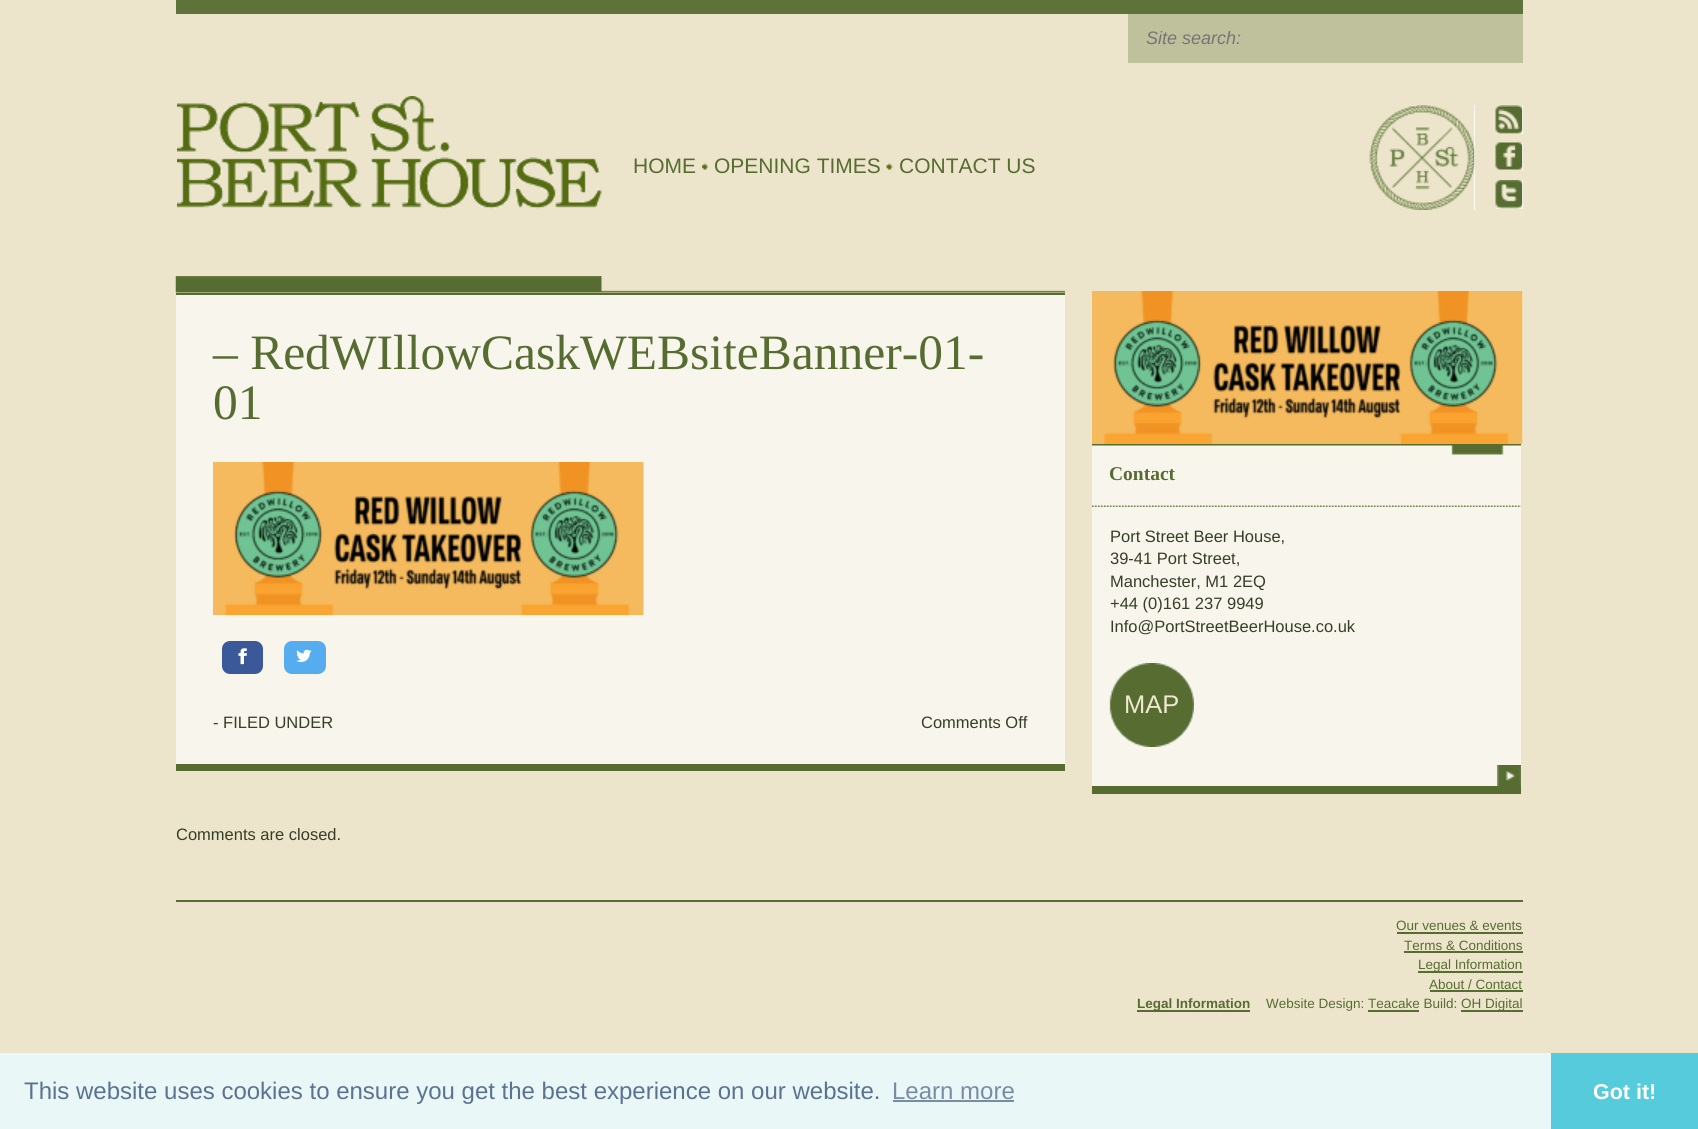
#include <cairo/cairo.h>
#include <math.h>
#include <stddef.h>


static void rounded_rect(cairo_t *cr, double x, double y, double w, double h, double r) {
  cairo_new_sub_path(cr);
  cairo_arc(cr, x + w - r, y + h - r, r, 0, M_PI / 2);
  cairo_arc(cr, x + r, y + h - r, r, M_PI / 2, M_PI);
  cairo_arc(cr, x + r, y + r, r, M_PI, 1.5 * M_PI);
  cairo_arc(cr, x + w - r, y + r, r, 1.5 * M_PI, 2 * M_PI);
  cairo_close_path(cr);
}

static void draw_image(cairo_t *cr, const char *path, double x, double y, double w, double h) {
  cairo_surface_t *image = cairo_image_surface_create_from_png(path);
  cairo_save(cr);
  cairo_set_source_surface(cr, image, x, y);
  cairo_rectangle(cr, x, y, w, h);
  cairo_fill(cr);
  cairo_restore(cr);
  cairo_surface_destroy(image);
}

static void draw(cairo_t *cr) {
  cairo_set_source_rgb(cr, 237 / 255.0, 229 / 255.0, 203 / 255.0);
  cairo_paint(cr);
  cairo_set_source_rgb(cr, 94 / 255.0, 115 / 255.0, 57 / 255.0);
  cairo_rectangle(cr, 176, 0, 1347, 14);
  cairo_fill(cr);
  cairo_set_source_rgb(cr, 191 / 255.0, 192 / 255.0, 156 / 255.0);
  cairo_rectangle(cr, 1128, 14, 395, 49);
  cairo_fill(cr);
  draw_image(cr, "images/1.png", 177, 96, 425, 113);
  draw_image(cr, "images/2.png", 702, 163, 6, 7);
  draw_image(cr, "images/3.png", 886, 163, 7, 7);
  cairo_set_source_rgb(cr, 1, 1, 1);
  cairo_rectangle(cr, 1474, 105, 1, 105);
  cairo_fill(cr);
  draw_image(cr, "images/4.png", 1369, 105, 106, 105);
  cairo_rectangle(cr, 1496, 105, 27, 29);
  cairo_fill(cr);
  draw_image(cr, "images/5.png", 1495, 105, 28, 29);
  cairo_rectangle(cr, 1522, 143, 1, 28);
  cairo_fill(cr);
  draw_image(cr, "images/6.png", 1495, 142, 28, 29);
  cairo_rectangle(cr, 1496, 180, 27, 29);
  cairo_fill(cr);
  draw_image(cr, "images/7.png", 1495, 180, 28, 29);
  cairo_set_source_rgb(cr, 86 / 255.0, 108 / 255.0, 49 / 255.0);
  cairo_rectangle(cr, 176, 900, 1347, 2);
  cairo_fill(cr);
  draw_image(cr, "images/8.png", 175, 276, 890, 17);
  cairo_rectangle(cr, 176, 764, 889, 7);
  cairo_fill(cr);
  cairo_set_source_rgb(cr, 248 / 255.0, 245 / 255.0, 236 / 255.0);
  cairo_rectangle(cr, 176, 295, 889, 469);
  cairo_fill(cr);
  cairo_set_source_rgb(cr, 86 / 255.0, 108 / 255.0, 49 / 255.0);
  cairo_rectangle(cr, 176, 293, 889, 2);
  cairo_fill(cr);
  draw_image(cr, "images/9.png", 213, 462, 431, 153);
  cairo_set_source_rgb(cr, 59 / 255.0, 89 / 255.0, 152 / 255.0);
  rounded_rect(cr, 222, 641, 41, 33, 8);
  cairo_fill(cr);
  draw_image(cr, "images/10.png", 238, 648, 9, 17);
  cairo_set_source_rgb(cr, 85 / 255.0, 172 / 255.0, 238 / 255.0);
  rounded_rect(cr, 284, 641, 42, 33, 8);
  cairo_fill(cr);
  draw_image(cr, "images/11.png", 296, 649, 16, 14);
  draw_image(cr, "images/12.png", 1092, 291, 431, 153);
  cairo_set_source_rgb(cr, 248 / 255.0, 245 / 255.0, 236 / 255.0);
  cairo_rectangle(cr, 1092, 454, 429, 332);
  cairo_fill(cr);
  draw_image(cr, "images/13.png", 1092, 444, 429, 11);
  cairo_set_source_rgb(cr, 86 / 255.0, 108 / 255.0, 49 / 255.0);
  cairo_rectangle(cr, 1092, 786, 429, 8);
  cairo_fill(cr);
  draw_image(cr, "images/14.png", 1092, 505, 429, 2);
  draw_image(cr, "images/15.png", 1108, 663, 86, 84);
  draw_image(cr, "images/16.png", 1497, 765, 24, 21);
  cairo_rectangle(cr, 1397, 932, 126, 2);
  cairo_fill(cr);
  cairo_rectangle(cr, 1404, 951, 119, 2);
  cairo_fill(cr);
  cairo_rectangle(cr, 1418, 971, 105, 2);
  cairo_fill(cr);
  cairo_rectangle(cr, 1430, 990, 93, 2);
  cairo_fill(cr);
  cairo_rectangle(cr, 1137, 1010, 113, 2);
  cairo_fill(cr);
  cairo_rectangle(cr, 1368, 1010, 51, 2);
  cairo_fill(cr);
  cairo_rectangle(cr, 1461, 1010, 62, 2);
  cairo_fill(cr);
  cairo_set_source_rgb(cr, 234 / 255.0, 247 / 255.0, 247 / 255.0);
  cairo_rectangle(cr, 0, 1053, 1551, 76);
  cairo_fill(cr);
  cairo_set_source_rgb(cr, 120 / 255.0, 141 / 255.0, 165 / 255.0);
  cairo_rectangle(cr, 893, 1100, 121, 2);
  cairo_fill(cr);
  cairo_set_source_rgb(cr, 86 / 255.0, 203 / 255.0, 219 / 255.0);
  cairo_rectangle(cr, 1551, 1053, 147, 76);
  cairo_fill(cr);
  cairo_select_font_face(cr, "Liberation Sans", CAIRO_FONT_SLANT_ITALIC, CAIRO_FONT_WEIGHT_NORMAL);
  cairo_set_font_size(cr, 18);
  cairo_set_source_rgb(cr, 117 / 255.0, 117 / 255.0, 117 / 255.0);
  cairo_move_to(cr, 1146, 44);
  cairo_show_text(cr, "Site search:");
  cairo_select_font_face(cr, "Liberation Sans", CAIRO_FONT_SLANT_NORMAL, CAIRO_FONT_WEIGHT_NORMAL);
  cairo_set_font_size(cr, 21);
  cairo_set_source_rgb(cr, 86 / 255.0, 108 / 255.0, 49 / 255.0);
  cairo_move_to(cr, 633, 173);
  cairo_show_text(cr, "HOME");
  cairo_move_to(cr, 714, 173);
  cairo_show_text(cr, "OPENING TIMES");
  cairo_move_to(cr, 899, 173);
  cairo_show_text(cr, "CONTACT US");
  cairo_select_font_face(cr, "Liberation Serif", CAIRO_FONT_SLANT_NORMAL, CAIRO_FONT_WEIGHT_NORMAL);
  cairo_set_font_size(cr, 49.5);
  cairo_move_to(cr, 213, 369);
  cairo_show_text(cr, "– RedWIllowCaskWEBsiteBanner-01-");
  cairo_move_to(cr, 213, 419);
  cairo_show_text(cr, "01");
  cairo_select_font_face(cr, "Liberation Sans", CAIRO_FONT_SLANT_NORMAL, CAIRO_FONT_WEIGHT_NORMAL);
  cairo_set_font_size(cr, 16.5);
  cairo_set_source_rgb(cr, 53 / 255.0, 62 / 255.0, 38 / 255.0);
  cairo_move_to(cr, 213, 728);
  cairo_show_text(cr, "- FILED UNDER");
  cairo_move_to(cr, 921, 728);
  cairo_show_text(cr, "Comments Off");
  cairo_move_to(cr, 176, 840);
  cairo_show_text(cr, "Comments are closed.");
  cairo_select_font_face(cr, "Liberation Serif", CAIRO_FONT_SLANT_NORMAL, CAIRO_FONT_WEIGHT_BOLD);
  cairo_set_font_size(cr, 19.5);
  cairo_set_source_rgb(cr, 86 / 255.0, 108 / 255.0, 49 / 255.0);
  cairo_move_to(cr, 1109, 480);
  cairo_show_text(cr, "Contact");
  cairo_select_font_face(cr, "Liberation Sans", CAIRO_FONT_SLANT_NORMAL, CAIRO_FONT_WEIGHT_NORMAL);
  cairo_set_font_size(cr, 16.5);
  cairo_set_source_rgb(cr, 53 / 255.0, 62 / 255.0, 38 / 255.0);
  cairo_move_to(cr, 1110, 542);
  cairo_show_text(cr, "Port Street Beer House,");
  cairo_move_to(cr, 1110, 564);
  cairo_show_text(cr, "39-41 Port Street,");
  cairo_move_to(cr, 1110, 587);
  cairo_show_text(cr, "Manchester, M1 2EQ");
  cairo_move_to(cr, 1110, 609);
  cairo_show_text(cr, "+44 (0)161 237 9949");
  cairo_move_to(cr, 1110, 632);
  cairo_show_text(cr, "Info@PortStreetBeerHouse.co.uk");
  cairo_set_font_size(cr, 25.5);
  cairo_set_source_rgb(cr, 239 / 255.0, 232 / 255.0, 208 / 255.0);
  cairo_move_to(cr, 1124, 713);
  cairo_show_text(cr, "MAP");
  cairo_set_font_size(cr, 13.5);
  cairo_set_source_rgb(cr, 86 / 255.0, 108 / 255.0, 49 / 255.0);
  cairo_move_to(cr, 1396, 930);
  cairo_show_text(cr, "Our venues & events");
  cairo_move_to(cr, 1404, 950);
  cairo_show_text(cr, "Terms & Conditions");
  cairo_move_to(cr, 1418, 969);
  cairo_show_text(cr, "Legal Information");
  cairo_move_to(cr, 1429, 989);
  cairo_show_text(cr, "About / Contact");
  cairo_select_font_face(cr, "Liberation Sans", CAIRO_FONT_SLANT_NORMAL, CAIRO_FONT_WEIGHT_BOLD);
  cairo_move_to(cr, 1137, 1008);
  cairo_show_text(cr, "Legal Information");
  cairo_select_font_face(cr, "Liberation Sans", CAIRO_FONT_SLANT_NORMAL, CAIRO_FONT_WEIGHT_NORMAL);
  cairo_move_to(cr, 1266, 1008);
  cairo_show_text(cr, "Website Design: Teacake Build:");
  cairo_move_to(cr, 1461, 1008);
  cairo_show_text(cr, "OH Digital");
  cairo_set_font_size(cr, 24);
  cairo_set_source_rgb(cr, 92 / 255.0, 114 / 255.0, 145 / 255.0);
  cairo_move_to(cr, 24, 1099);
  cairo_show_text(cr, "This website uses cookies to ensure you get the best experience on our website.");
  cairo_set_source_rgb(cr, 120 / 255.0, 141 / 255.0, 165 / 255.0);
  cairo_move_to(cr, 892, 1099);
  cairo_show_text(cr, "Learn more");
  cairo_select_font_face(cr, "Liberation Sans", CAIRO_FONT_SLANT_NORMAL, CAIRO_FONT_WEIGHT_BOLD);
  cairo_set_font_size(cr, 21.5);
  cairo_set_source_rgb(cr, 1, 1, 1);
  cairo_move_to(cr, 1593, 1099);
  cairo_show_text(cr, "Got it!");
}

int main(void) {
  cairo_surface_t *surface = cairo_image_surface_create(CAIRO_FORMAT_RGB24, 1698, 1129);
  cairo_t *cr = cairo_create(surface);
  cairo_font_options_t *options = cairo_font_options_create();
  cairo_font_options_set_hint_metrics(options, CAIRO_HINT_METRICS_OFF);
  cairo_font_options_set_hint_style(options, CAIRO_HINT_STYLE_NONE);
  cairo_set_font_options(cr, options);
  cairo_set_miter_limit(cr, 4);
  draw(cr);
  cairo_surface_write_to_png(surface, "out.png");
  cairo_font_options_destroy(options);
  cairo_destroy(cr);
  cairo_surface_destroy(surface);
  return 0;
}
